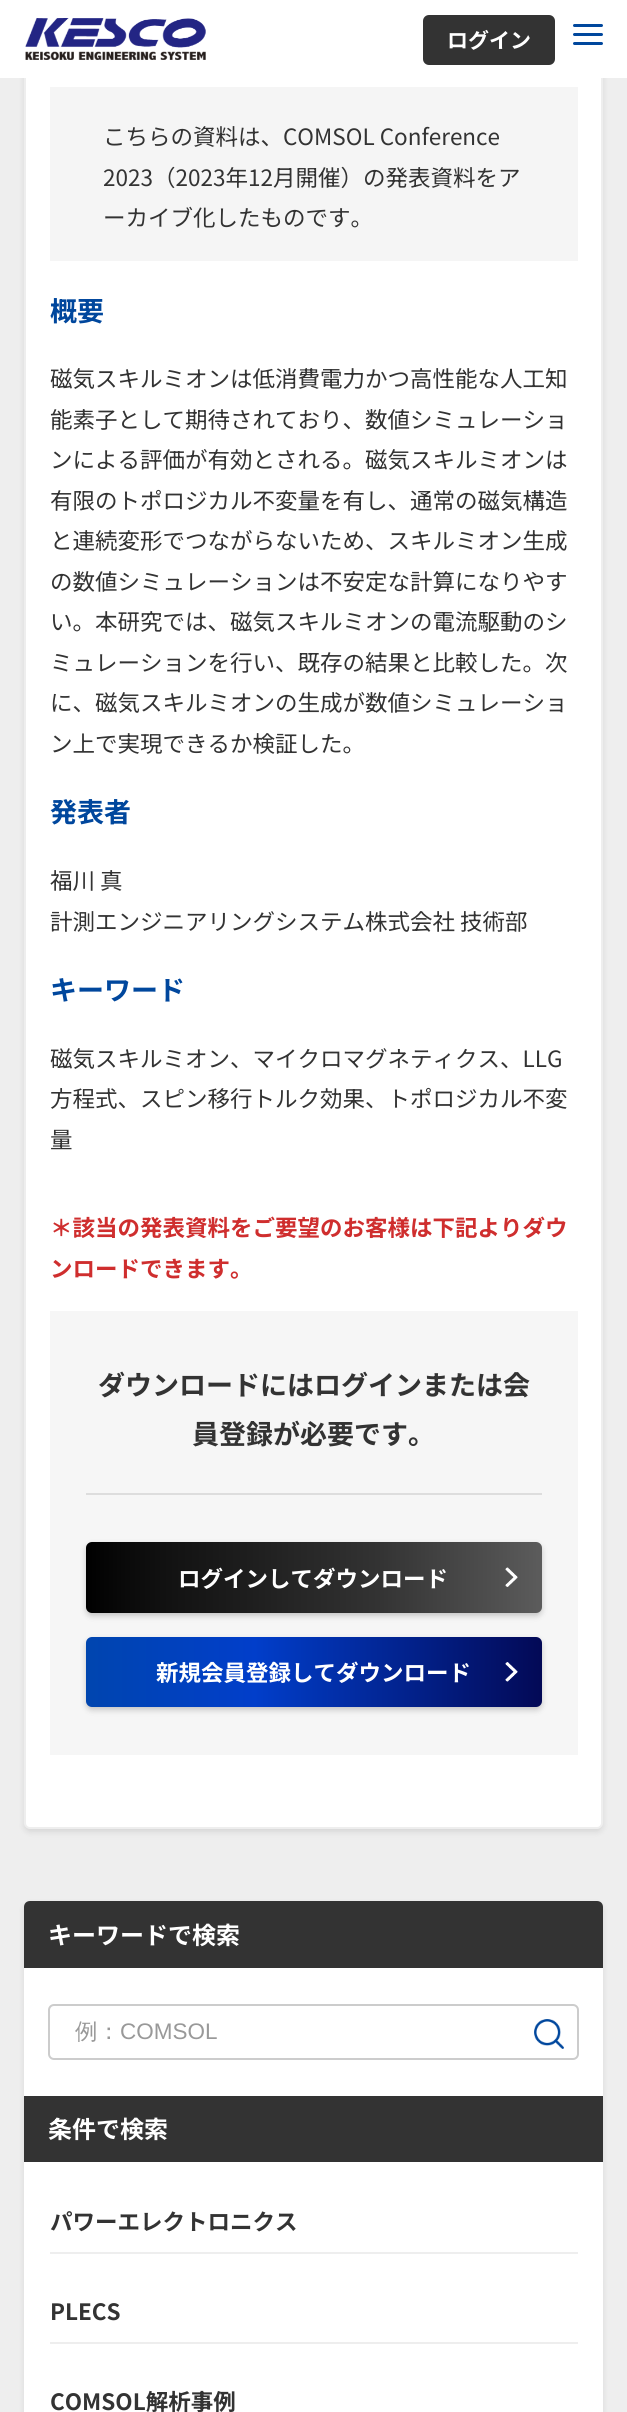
#include <cairo/cairo.h>
#include <math.h>
#include <stddef.h>


static void rounded_rect(cairo_t *cr, double x, double y, double w, double h, double r) {
  cairo_new_sub_path(cr);
  cairo_arc(cr, x + w - r, y + h - r, r, 0, M_PI / 2);
  cairo_arc(cr, x + r, y + h - r, r, M_PI / 2, M_PI);
  cairo_arc(cr, x + r, y + r, r, M_PI, 1.5 * M_PI);
  cairo_arc(cr, x + w - r, y + r, r, 1.5 * M_PI, 2 * M_PI);
  cairo_close_path(cr);
}

static void draw_shadow(cairo_t *cr, double x, double y, double w, double h, double r, double blur, double alpha) {
  cairo_push_group_with_content(cr, CAIRO_CONTENT_ALPHA);
  cairo_set_operator(cr, CAIRO_OPERATOR_SOURCE);
  for (int i = 15; i >= -15 && fmin(w, h) + blur * i / 3 > 0; i -= 2) {
    double e = blur * i / 6;
    cairo_set_source_rgba(cr, 0, 0, 0, alpha * erfc((i - 1) / 8.5) / 2);
    rounded_rect(cr, x - e, y - e, w + 2 * e, h + 2 * e, fmax(0, fmin(r + e + blur * .6, fmin(w, h) / 2 + e)));
    cairo_fill(cr);
  }
  cairo_pattern_t *soft = cairo_pop_group(cr);
  cairo_mask(cr, soft);
  cairo_pattern_destroy(soft);
}

static void draw_image(cairo_t *cr, const char *path, double x, double y, double w, double h) {
  cairo_surface_t *image = cairo_image_surface_create_from_png(path);
  cairo_save(cr);
  cairo_set_source_surface(cr, image, x, y);
  cairo_rectangle(cr, x, y, w, h);
  cairo_fill(cr);
  cairo_restore(cr);
  cairo_surface_destroy(image);
}

static void draw(cairo_t *cr) {
  cairo_pattern_t *gradient;
  cairo_set_source_rgb(cr, 238 / 255.0, 238 / 255.0, 238 / 255.0);
  cairo_paint(cr);
  cairo_set_source_rgb(cr, 0, 0, 0);
  draw_shadow(cr, 24, 53, 579, 1779, 6, 3, 0.1);
  cairo_set_source_rgb(cr, 1, 1, 1);
  rounded_rect(cr, 25, 51, 577, 1777, 5);
  cairo_fill_preserve(cr);
  cairo_set_source_rgb(cr, 238 / 255.0, 238 / 255.0, 238 / 255.0);
  cairo_stroke(cr);
  cairo_set_source_rgb(cr, 1, 1, 1);
  cairo_rectangle(cr, 0, 0, 627, 78);
  cairo_fill(cr);
  draw_image(cr, "images/1.png", 25, 18, 181, 42);
  cairo_set_source_rgb(cr, 51 / 255.0, 51 / 255.0, 51 / 255.0);
  rounded_rect(cr, 423, 15, 132, 50, 6);
  cairo_fill(cr);
  cairo_set_source_rgb(cr, 0, 71 / 255.0, 157 / 255.0);
  rounded_rect(cr, 573, 24, 30, 3, 1.5);
  cairo_fill(cr);
  rounded_rect(cr, 573, 33, 30, 3, 1.5);
  cairo_fill(cr);
  rounded_rect(cr, 573, 42, 30, 3, 1.5);
  cairo_fill(cr);
  cairo_set_source_rgb(cr, 245 / 255.0, 245 / 255.0, 245 / 255.0);
  cairo_rectangle(cr, 50, 87, 528, 174);
  cairo_fill(cr);
  cairo_set_source_rgb(cr, 246 / 255.0, 246 / 255.0, 246 / 255.0);
  cairo_rectangle(cr, 50, 1311, 528, 444);
  cairo_fill(cr);
  cairo_set_source_rgb(cr, 221 / 255.0, 221 / 255.0, 221 / 255.0);
  cairo_rectangle(cr, 86, 1493, 456, 2);
  cairo_fill(cr);
  cairo_set_source_rgb(cr, 0, 0, 0);
  draw_shadow(cr, 86, 1545, 456, 71, 6, 3, 0.2);
  gradient = cairo_pattern_create_linear(86, 1577, 542, 1577);
  cairo_pattern_add_color_stop_rgba(gradient, 0, 0, 0, 0, 1);
  cairo_pattern_add_color_stop_rgba(gradient, 0.09, 10 / 255.0, 10 / 255.0, 10 / 255.0, 1);
  cairo_pattern_add_color_stop_rgba(gradient, 0.18, 18 / 255.0, 18 / 255.0, 18 / 255.0, 1);
  cairo_pattern_add_color_stop_rgba(gradient, 0.27, 24 / 255.0, 24 / 255.0, 24 / 255.0, 1);
  cairo_pattern_add_color_stop_rgba(gradient, 0.36, 30 / 255.0, 30 / 255.0, 30 / 255.0, 1);
  cairo_pattern_add_color_stop_rgba(gradient, 0.45, 37 / 255.0, 37 / 255.0, 37 / 255.0, 1);
  cairo_pattern_add_color_stop_rgba(gradient, 0.55, 44 / 255.0, 44 / 255.0, 44 / 255.0, 1);
  cairo_pattern_add_color_stop_rgba(gradient, 0.64, 51 / 255.0, 51 / 255.0, 51 / 255.0, 1);
  cairo_pattern_add_color_stop_rgba(gradient, 0.73, 61 / 255.0, 61 / 255.0, 61 / 255.0, 1);
  cairo_pattern_add_color_stop_rgba(gradient, 0.82, 71 / 255.0, 71 / 255.0, 71 / 255.0, 1);
  cairo_pattern_add_color_stop_rgba(gradient, 0.91, 81 / 255.0, 81 / 255.0, 81 / 255.0, 1);
  cairo_pattern_add_color_stop_rgba(gradient, 1, 92 / 255.0, 92 / 255.0, 92 / 255.0, 1);
  cairo_set_source(cr, gradient);
  cairo_pattern_destroy(gradient);
  rounded_rect(cr, 86, 1542, 456, 71, 6);
  cairo_fill(cr);
  draw_image(cr, "images/2.png", 505, 1567, 13, 20);
  cairo_set_source_rgb(cr, 0, 0, 0);
  draw_shadow(cr, 86, 1640, 456, 70, 6, 3, 0.2);
  gradient = cairo_pattern_create_linear(86, 1672, 542, 1672);
  cairo_pattern_add_color_stop_rgba(gradient, 0, 0, 69 / 255.0, 175 / 255.0, 1);
  cairo_pattern_add_color_stop_rgba(gradient, 0.37, 1 / 255.0, 62 / 255.0, 202 / 255.0, 1);
  cairo_pattern_add_color_stop_rgba(gradient, 1, 3 / 255.0, 9 / 255.0, 86 / 255.0, 1);
  cairo_set_source(cr, gradient);
  cairo_pattern_destroy(gradient);
  rounded_rect(cr, 86, 1637, 456, 70, 6);
  cairo_fill(cr);
  draw_image(cr, "images/3.png", 505, 1662, 13, 20);
  cairo_set_source_rgb(cr, 0, 0, 0);
  draw_shadow(cr, 24, 1904, 579, 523, 6, 3, 0.1);
  cairo_set_source_rgb(cr, 1, 1, 1);
  rounded_rect(cr, 24, 1901, 579, 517, 6);
  cairo_fill(cr);
  cairo_set_source_rgb(cr, 51 / 255.0, 51 / 255.0, 51 / 255.0);
  cairo_new_path(cr);
  cairo_move_to(cr, 30, 1901);
  cairo_line_to(cr, 597, 1901);
  cairo_curve_to(cr, 600.5, 1901, 603, 1903.5, 603, 1907);
  cairo_line_to(cr, 603, 1968);
  cairo_line_to(cr, 24, 1968);
  cairo_line_to(cr, 24, 1907);
  cairo_curve_to(cr, 24, 1903.5, 26.5, 1901, 30, 1901);
  cairo_close_path(cr);
  cairo_fill(cr);
  rounded_rect(cr, 49, 2005, 529, 54, 5);
  cairo_set_source_rgb(cr, 204 / 255.0, 204 / 255.0, 204 / 255.0);
  cairo_stroke(cr);
  draw_image(cr, "images/4.png", 534, 2019, 30, 30);
  cairo_set_source_rgb(cr, 51 / 255.0, 51 / 255.0, 51 / 255.0);
  cairo_rectangle(cr, 24, 2096, 579, 66);
  cairo_fill(cr);
  cairo_set_source_rgb(cr, 238 / 255.0, 238 / 255.0, 238 / 255.0);
  cairo_rectangle(cr, 50, 2252, 528, 2);
  cairo_fill(cr);
  cairo_rectangle(cr, 50, 2342, 528, 2);
  cairo_fill(cr);
  cairo_select_font_face(cr, "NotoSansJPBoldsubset", CAIRO_FONT_SLANT_NORMAL, CAIRO_FONT_WEIGHT_BOLD);
  cairo_set_font_size(cr, 21);
  cairo_set_source_rgb(cr, 1, 1, 1);
  cairo_move_to(cr, 447, 48);
  cairo_show_text(cr, "ログイン");
  cairo_select_font_face(cr, "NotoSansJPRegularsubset", CAIRO_FONT_SLANT_NORMAL, CAIRO_FONT_WEIGHT_NORMAL);
  cairo_set_font_size(cr, 22.5);
  cairo_set_source_rgb(cr, 51 / 255.0, 51 / 255.0, 51 / 255.0);
  cairo_move_to(cr, 103, 145);
  cairo_show_text(cr, "こちらの資料は、COMSOL Conference");
  cairo_move_to(cr, 103, 186);
  cairo_show_text(cr, "2023（2023年12月開催）の発表資料をア");
  cairo_move_to(cr, 103, 226);
  cairo_show_text(cr, "ーカイブ化したものです。");
  cairo_select_font_face(cr, "NotoSansJPBoldsubset", CAIRO_FONT_SLANT_NORMAL, CAIRO_FONT_WEIGHT_BOLD);
  cairo_set_font_size(cr, 27);
  cairo_set_source_rgb(cr, 0, 71 / 255.0, 157 / 255.0);
  cairo_move_to(cr, 50, 321);
  cairo_show_text(cr, "概要");
  cairo_select_font_face(cr, "NotoSansJPRegularsubset", CAIRO_FONT_SLANT_NORMAL, CAIRO_FONT_WEIGHT_NORMAL);
  cairo_set_font_size(cr, 22.5);
  cairo_set_source_rgb(cr, 51 / 255.0, 51 / 255.0, 51 / 255.0);
  cairo_move_to(cr, 50, 387);
  cairo_show_text(cr, "磁気スキルミオンは低消費電力かつ高性能な人工知");
  cairo_move_to(cr, 50, 428);
  cairo_show_text(cr, "能素子として期待されており、数値シミュレーショ");
  cairo_move_to(cr, 50, 468);
  cairo_show_text(cr, "ンによる評価が有効とされる。磁気スキルミオンは");
  cairo_move_to(cr, 50, 509);
  cairo_show_text(cr, "有限のトポロジカル不変量を有し、通常の磁気構造");
  cairo_move_to(cr, 50, 549);
  cairo_show_text(cr, "と連続変形でつながらないため、スキルミオン生成");
  cairo_move_to(cr, 50, 590);
  cairo_show_text(cr, "の数値シミュレーションは不安定な計算になりやす");
  cairo_move_to(cr, 50, 630);
  cairo_show_text(cr, "い。本研究では、磁気スキルミオンの電流駆動のシ");
  cairo_move_to(cr, 50, 671);
  cairo_show_text(cr, "ミュレーションを行い、既存の結果と比較した。次");
  cairo_move_to(cr, 50, 711);
  cairo_show_text(cr, "に、磁気スキルミオンの生成が数値シミュレーショ");
  cairo_move_to(cr, 50, 752);
  cairo_show_text(cr, "ン上で実現できるか検証した。");
  cairo_select_font_face(cr, "NotoSansJPBoldsubset", CAIRO_FONT_SLANT_NORMAL, CAIRO_FONT_WEIGHT_BOLD);
  cairo_set_font_size(cr, 27);
  cairo_set_source_rgb(cr, 0, 71 / 255.0, 157 / 255.0);
  cairo_move_to(cr, 50, 822);
  cairo_show_text(cr, "発表者");
  cairo_select_font_face(cr, "NotoSansJPRegularsubset", CAIRO_FONT_SLANT_NORMAL, CAIRO_FONT_WEIGHT_NORMAL);
  cairo_set_font_size(cr, 22.5);
  cairo_set_source_rgb(cr, 51 / 255.0, 51 / 255.0, 51 / 255.0);
  cairo_move_to(cr, 50, 889);
  cairo_show_text(cr, "福川 真");
  cairo_move_to(cr, 50, 930);
  cairo_show_text(cr, "計測エンジニアリングシステム株式会社 技術部");
  cairo_select_font_face(cr, "NotoSansJPBoldsubset", CAIRO_FONT_SLANT_NORMAL, CAIRO_FONT_WEIGHT_BOLD);
  cairo_set_font_size(cr, 27);
  cairo_set_source_rgb(cr, 0, 71 / 255.0, 157 / 255.0);
  cairo_move_to(cr, 50, 1000);
  cairo_show_text(cr, "キーワード");
  cairo_select_font_face(cr, "NotoSansJPRegularsubset", CAIRO_FONT_SLANT_NORMAL, CAIRO_FONT_WEIGHT_NORMAL);
  cairo_set_font_size(cr, 22.5);
  cairo_set_source_rgb(cr, 51 / 255.0, 51 / 255.0, 51 / 255.0);
  cairo_move_to(cr, 50, 1067);
  cairo_show_text(cr, "磁気スキルミオン、マイクロマグネティクス、LLG");
  cairo_move_to(cr, 50, 1107);
  cairo_show_text(cr, "方程式、スピン移行トルク効果、トポロジカル不変");
  cairo_move_to(cr, 50, 1148);
  cairo_show_text(cr, "量");
  cairo_select_font_face(cr, "NotoSansJPBoldsubset", CAIRO_FONT_SLANT_NORMAL, CAIRO_FONT_WEIGHT_BOLD);
  cairo_set_source_rgb(cr, 207 / 255.0, 46 / 255.0, 46 / 255.0);
  cairo_move_to(cr, 50, 1236);
  cairo_show_text(cr, "＊該当の発表資料をご要望のお客様は下記よりダウ");
  cairo_move_to(cr, 50, 1277);
  cairo_show_text(cr, "ンロードできます。");
  cairo_set_font_size(cr, 27);
  cairo_set_source_rgb(cr, 51 / 255.0, 51 / 255.0, 51 / 255.0);
  cairo_move_to(cr, 98, 1395);
  cairo_show_text(cr, "ダウンロードにはログインまたは会");
  cairo_move_to(cr, 192, 1444);
  cairo_show_text(cr, "員登録が必要です。");
  cairo_set_font_size(cr, 22.5);
  cairo_set_source_rgb(cr, 1, 1, 1);
  cairo_move_to(cr, 178, 1587);
  cairo_show_text(cr, "ログインしてダウンロード");
  cairo_move_to(cr, 156, 1681);
  cairo_show_text(cr, "新規会員登録してダウンロード");
  cairo_set_font_size(cr, 24);
  cairo_move_to(cr, 48, 1944);
  cairo_show_text(cr, "キーワードで検索");
  cairo_select_font_face(cr, "WenQuanYi Zen Hei Medium", CAIRO_FONT_SLANT_NORMAL, CAIRO_FONT_WEIGHT_NORMAL);
  cairo_set_font_size(cr, 22.5);
  cairo_set_source_rgb(cr, 153 / 255.0, 153 / 255.0, 153 / 255.0);
  cairo_move_to(cr, 75, 2039);
  cairo_show_text(cr, "例：");
  cairo_select_font_face(cr, "Liberation Sans", CAIRO_FONT_SLANT_NORMAL, CAIRO_FONT_WEIGHT_NORMAL);
  cairo_move_to(cr, 120, 2039);
  cairo_show_text(cr, "COMSOL");
  cairo_select_font_face(cr, "NotoSansJPBoldsubset", CAIRO_FONT_SLANT_NORMAL, CAIRO_FONT_WEIGHT_BOLD);
  cairo_set_font_size(cr, 24);
  cairo_set_source_rgb(cr, 1, 1, 1);
  cairo_move_to(cr, 48, 2138);
  cairo_show_text(cr, "条件で検索");
  cairo_set_font_size(cr, 22.5);
  cairo_set_source_rgb(cr, 51 / 255.0, 51 / 255.0, 51 / 255.0);
  cairo_move_to(cr, 50, 2230);
  cairo_show_text(cr, "パワーエレクトロニクス");
  cairo_move_to(cr, 50, 2320);
  cairo_show_text(cr, "PLECS");
  cairo_move_to(cr, 50, 2410);
  cairo_show_text(cr, "COMSOL解析事例");
}

int main(void) {
  cairo_surface_t *surface = cairo_image_surface_create(CAIRO_FORMAT_RGB24, 627, 2412);
  cairo_t *cr = cairo_create(surface);
  cairo_font_options_t *options = cairo_font_options_create();
  cairo_font_options_set_hint_metrics(options, CAIRO_HINT_METRICS_OFF);
  cairo_font_options_set_hint_style(options, CAIRO_HINT_STYLE_NONE);
  cairo_set_font_options(cr, options);
  cairo_set_miter_limit(cr, 4);
  draw(cr);
  cairo_surface_write_to_png(surface, "out.png");
  cairo_font_options_destroy(options);
  cairo_destroy(cr);
  cairo_surface_destroy(surface);
  return 0;
}
